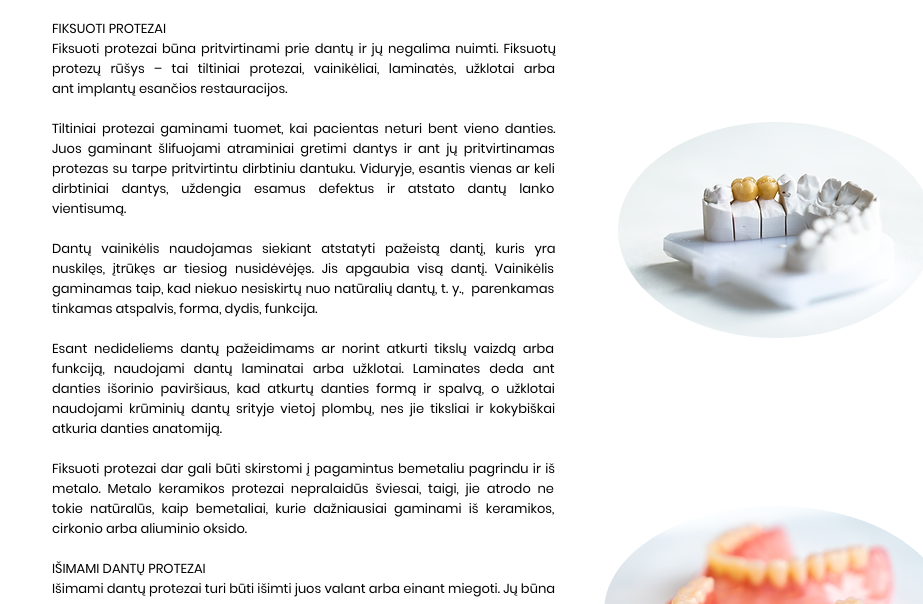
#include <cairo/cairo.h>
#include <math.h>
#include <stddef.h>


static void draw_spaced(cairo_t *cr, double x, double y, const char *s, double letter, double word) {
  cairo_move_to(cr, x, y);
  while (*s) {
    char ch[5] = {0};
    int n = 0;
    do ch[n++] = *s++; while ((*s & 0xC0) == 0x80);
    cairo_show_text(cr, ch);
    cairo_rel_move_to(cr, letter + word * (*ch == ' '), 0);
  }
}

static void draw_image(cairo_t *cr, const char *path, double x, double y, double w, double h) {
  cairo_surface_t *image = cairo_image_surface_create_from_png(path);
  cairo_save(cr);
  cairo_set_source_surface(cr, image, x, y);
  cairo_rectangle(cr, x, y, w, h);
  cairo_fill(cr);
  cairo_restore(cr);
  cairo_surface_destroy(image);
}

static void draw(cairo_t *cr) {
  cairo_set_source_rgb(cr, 1, 1, 1);
  cairo_paint(cr);
  draw_image(cr, "images/1.png", 618, 122, 305, 216);
  draw_image(cr, "images/2.png", 604, 506, 319, 98);
  cairo_select_font_face(cr, "Poppins", CAIRO_FONT_SLANT_NORMAL, CAIRO_FONT_WEIGHT_NORMAL);
  cairo_set_font_size(cr, 13);
  cairo_set_source_rgb(cr, 0, 0, 0);
  cairo_move_to(cr, 52, 33);
  cairo_show_text(cr, "FIKSUOTI PROTEZAI");
  draw_spaced(cr, 52, 53, "Fiksuoti protezai būna pritvirtinami prie dantų ir jų negalima nuimti. Fiksuotų", 0, 1.75);
  draw_spaced(cr, 52, 73, "protezų rūšys – tai tiltiniai protezai, vainikėliai, laminatės, užklotai arba", 0, 6.25);
  cairo_move_to(cr, 52, 93);
  cairo_show_text(cr, "ant implantų esančios restauracijos.");
  draw_spaced(cr, 52, 133, "Tiltiniai protezai gaminami tuomet, kai pacientas neturi bent vieno danties.", 0, 2.5);
  draw_spaced(cr, 52, 153, "Juos gaminant šlifuojami atraminiai gretimi dantys ir ant jų pritvirtinamas", 0, 3);
  draw_spaced(cr, 52, 173, "protezas su tarpe pritvirtintu dirbtiniu dantuku. Viduryje, esantis vienas ar keli", 0, 1);
  draw_spaced(cr, 52, 193, "dirbtiniai dantys, uždengia esamus defektus ir atstato dantų lanko", 0, 9.5);
  cairo_move_to(cr, 52, 213);
  cairo_show_text(cr, "vientisumą.");
  draw_spaced(cr, 52, 253, "Dantų vainikėlis naudojamas siekiant atstatyti pažeistą dantį, kuris yra", 0, 6.5);
  draw_spaced(cr, 52, 273, "nuskilęs, įtrūkęs ar tiesiog nusidėvėjęs. Jis apgaubia visą dantį. Vainikėlis", 0, 4.5);
  draw_spaced(cr, 52, 293, "gaminamas taip, kad niekuo nesiskirtų nuo natūralių dantų, t. y.,  parenkamas", 0, 0.5);
  cairo_move_to(cr, 52, 313);
  cairo_show_text(cr, "tinkamas atspalvis, forma, dydis, funkcija.");
  draw_spaced(cr, 52, 353, "Esant nedideliems dantų pažeidimams ar norint atkurti tikslų vaizdą arba", 0, 3.5);
  draw_spaced(cr, 52, 373, "funkciją, naudojami dantų laminatai arba užklotai. Laminates deda ant", 0, 5.75);
  draw_spaced(cr, 52, 393, "danties išorinio paviršiaus, kad atkurtų danties formą ir spalvą, o užklotai", 0, 3.75);
  draw_spaced(cr, 52, 413, "naudojami krūminių dantų srityje vietoj plombų, nes jie tiksliai ir kokybiškai", 0, 2.9);
  cairo_move_to(cr, 52, 433);
  cairo_show_text(cr, "atkuria danties anatomiją.");
  draw_spaced(cr, 52, 473, "Fiksuoti protezai dar gali būti skirstomi į pagamintus bemetaliu pagrindu ir iš", 0, 1.1);
  draw_spaced(cr, 52, 493, "metalo. Metalo keramikos protezai nepralaidūs šviesai, taigi, jie atrodo ne", 0, 3.5);
  draw_spaced(cr, 52, 513, "tokie natūralūs, kaip bemetaliai, kurie dažniausiai gaminami iš keramikos,", 0, 4);
  cairo_move_to(cr, 52, 533);
  cairo_show_text(cr, "cirkonio arba aliuminio oksido.");
  cairo_move_to(cr, 52, 573);
  cairo_show_text(cr, "IŠIMAMI DANTŲ PROTEZAI");
  cairo_move_to(cr, 52, 593);
  cairo_show_text(cr, "Išimami dantų protezai turi būti išimti juos valant arba einant miegoti. Jų būna");
}

int main(void) {
  cairo_surface_t *surface = cairo_image_surface_create(CAIRO_FORMAT_RGB24, 923, 604);
  cairo_t *cr = cairo_create(surface);
  cairo_font_options_t *options = cairo_font_options_create();
  cairo_font_options_set_hint_metrics(options, CAIRO_HINT_METRICS_OFF);
  cairo_font_options_set_hint_style(options, CAIRO_HINT_STYLE_NONE);
  cairo_set_font_options(cr, options);
  cairo_set_miter_limit(cr, 4);
  draw(cr);
  cairo_surface_write_to_png(surface, "out.png");
  cairo_font_options_destroy(options);
  cairo_destroy(cr);
  cairo_surface_destroy(surface);
  return 0;
}
